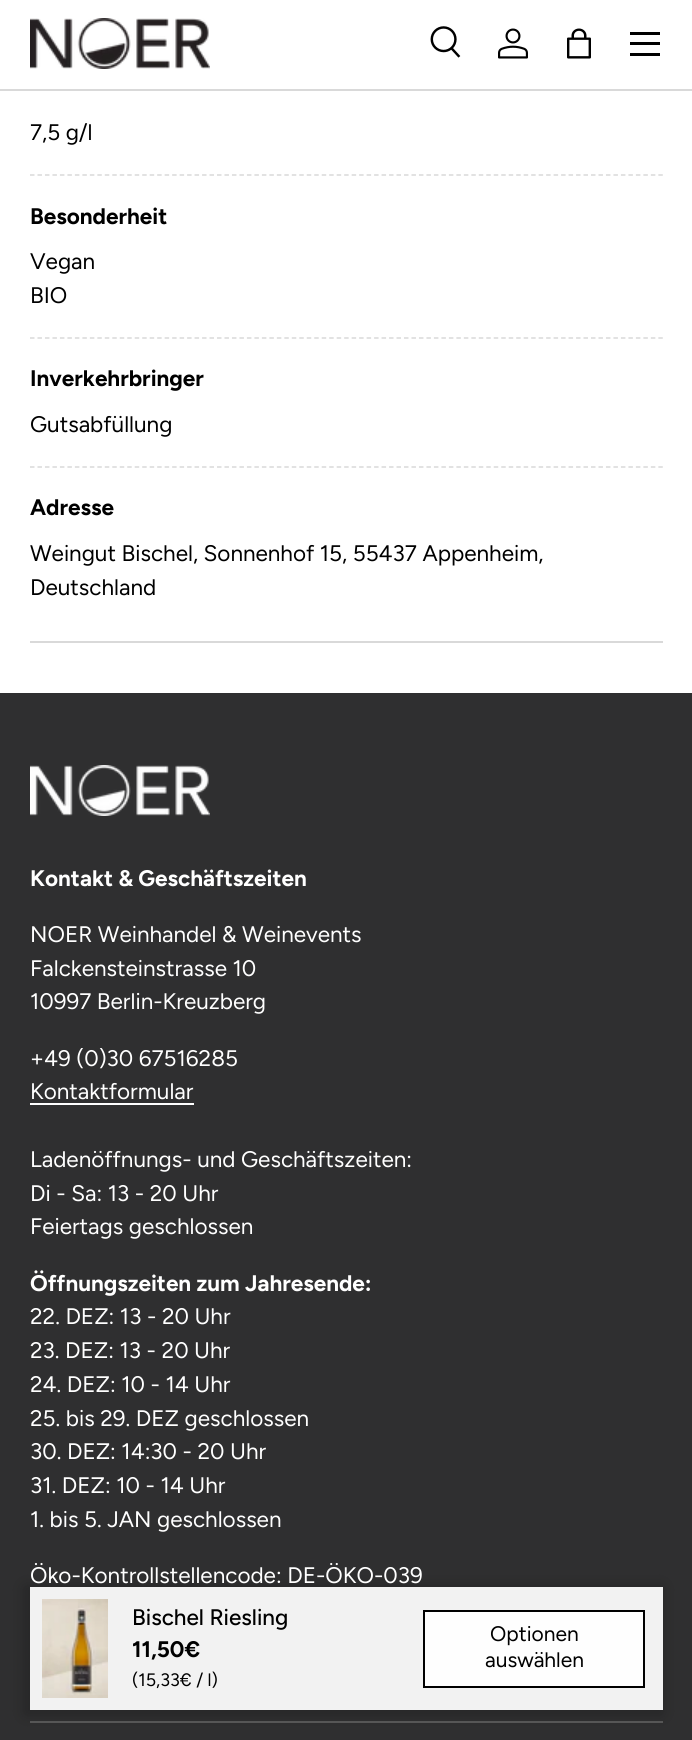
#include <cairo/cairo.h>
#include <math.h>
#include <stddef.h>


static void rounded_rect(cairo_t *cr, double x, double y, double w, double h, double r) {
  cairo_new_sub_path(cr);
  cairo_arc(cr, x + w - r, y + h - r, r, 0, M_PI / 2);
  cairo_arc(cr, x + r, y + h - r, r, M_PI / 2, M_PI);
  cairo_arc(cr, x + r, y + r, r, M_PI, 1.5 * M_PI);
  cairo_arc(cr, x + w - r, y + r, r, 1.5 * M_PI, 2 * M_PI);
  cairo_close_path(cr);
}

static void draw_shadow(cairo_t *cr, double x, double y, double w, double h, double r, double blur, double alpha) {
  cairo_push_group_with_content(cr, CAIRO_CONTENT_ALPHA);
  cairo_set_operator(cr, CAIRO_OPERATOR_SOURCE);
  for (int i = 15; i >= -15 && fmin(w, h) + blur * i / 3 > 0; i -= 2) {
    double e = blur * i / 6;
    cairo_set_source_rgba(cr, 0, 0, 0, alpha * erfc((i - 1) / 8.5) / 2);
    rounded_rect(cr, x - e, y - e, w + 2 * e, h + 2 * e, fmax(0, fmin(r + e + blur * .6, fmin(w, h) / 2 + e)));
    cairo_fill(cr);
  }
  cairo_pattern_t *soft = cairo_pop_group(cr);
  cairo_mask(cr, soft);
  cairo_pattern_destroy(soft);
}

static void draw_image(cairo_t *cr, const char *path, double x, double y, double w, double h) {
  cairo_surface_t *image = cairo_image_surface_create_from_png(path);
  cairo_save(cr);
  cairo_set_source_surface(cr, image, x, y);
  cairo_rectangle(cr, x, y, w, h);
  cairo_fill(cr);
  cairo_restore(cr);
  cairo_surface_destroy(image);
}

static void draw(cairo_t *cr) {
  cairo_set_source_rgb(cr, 1, 1, 1);
  cairo_paint(cr);
  cairo_set_source_rgba(cr, 0, 0, 0, 0.15);
  cairo_rectangle(cr, 0, 89, 692, 2);
  cairo_fill(cr);
  draw_image(cr, "images/1.png", 30, 18, 180, 51);
  draw_image(cr, "images/2.png", 430, 26, 31, 32);
  draw_image(cr, "images/3.png", 498, 28, 30, 31);
  draw_image(cr, "images/4.png", 567, 28, 24, 31);
  cairo_set_source_rgb(cr, 0, 0, 0);
  cairo_rectangle(cr, 630, 32, 30, 3);
  cairo_fill(cr);
  cairo_rectangle(cr, 630, 53, 30, 3);
  cairo_fill(cr);
  cairo_rectangle(cr, 630, 42, 30, 3);
  cairo_fill(cr);
  cairo_set_source_rgb(cr, 217 / 255.0, 217 / 255.0, 217 / 255.0);
  cairo_rectangle(cr, 30, 641, 633, 2);
  cairo_fill(cr);
  cairo_new_path(cr);
  cairo_move_to(cr, 30, 175);
  cairo_line_to(cr, 663, 175);
  cairo_set_line_width(cr, 1.5);
  cairo_set_dash(cr, (double[]){4.5, 2.98}, 2, 0);
  cairo_stroke(cr);
  cairo_new_path(cr);
  cairo_move_to(cr, 30, 338);
  cairo_line_to(cr, 663, 338);
  cairo_stroke(cr);
  cairo_new_path(cr);
  cairo_move_to(cr, 30, 467);
  cairo_line_to(cr, 663, 467);
  cairo_stroke(cr);
  cairo_set_source_rgb(cr, 47 / 255.0, 47 / 255.0, 48 / 255.0);
  cairo_rectangle(cr, 0, 693, 692, 1047);
  cairo_fill(cr);
  cairo_set_source_rgb(cr, 89 / 255.0, 89 / 255.0, 89 / 255.0);
  cairo_rectangle(cr, 30, 1721, 633, 2);
  cairo_fill(cr);
  cairo_set_source_rgb(cr, 0, 0, 0);
  draw_shadow(cr, 24, 1586, 639, 129, 0, 7.5, 0.2);
  cairo_set_source_rgb(cr, 242 / 255.0, 242 / 255.0, 242 / 255.0);
  cairo_rectangle(cr, 30, 1587, 633, 123);
  cairo_fill(cr);
  draw_image(cr, "images/5.png", 42, 1599, 66, 99);
  cairo_set_source_rgb(cr, 254 / 255.0, 254 / 255.0, 254 / 255.0);
  cairo_rectangle(cr, 424, 1611, 220, 76);
  cairo_fill_preserve(cr);
  cairo_set_source_rgb(cr, 0, 0, 0);
  cairo_set_line_width(cr, 2);
  cairo_set_dash(cr, NULL, 0, 0);
  cairo_stroke(cr);
  draw_image(cr, "images/6.png", 30, 765, 180, 51);
  cairo_set_source_rgb(cr, 1, 1, 1);
  cairo_rectangle(cr, 30, 1103, 164, 2);
  cairo_fill(cr);
  cairo_select_font_face(cr, "Figtree", CAIRO_FONT_SLANT_NORMAL, CAIRO_FONT_WEIGHT_NORMAL);
  cairo_set_font_size(cr, 22.5);
  cairo_set_source_rgb(cr, 0, 0, 0);
  cairo_move_to(cr, 30, 140);
  cairo_show_text(cr, "7,5 g/l");
  cairo_select_font_face(cr, "Figtree", CAIRO_FONT_SLANT_NORMAL, CAIRO_FONT_WEIGHT_BOLD);
  cairo_move_to(cr, 30, 224);
  cairo_show_text(cr, "Besonderheit");
  cairo_select_font_face(cr, "Figtree", CAIRO_FONT_SLANT_NORMAL, CAIRO_FONT_WEIGHT_NORMAL);
  cairo_move_to(cr, 30, 269);
  cairo_show_text(cr, "Vegan");
  cairo_move_to(cr, 30, 303);
  cairo_show_text(cr, "BIO");
  cairo_select_font_face(cr, "Figtree", CAIRO_FONT_SLANT_NORMAL, CAIRO_FONT_WEIGHT_BOLD);
  cairo_move_to(cr, 30, 386);
  cairo_show_text(cr, "Inverkehrbringer");
  cairo_select_font_face(cr, "Figtree", CAIRO_FONT_SLANT_NORMAL, CAIRO_FONT_WEIGHT_NORMAL);
  cairo_move_to(cr, 30, 432);
  cairo_show_text(cr, "Gutsabfüllung");
  cairo_select_font_face(cr, "Figtree", CAIRO_FONT_SLANT_NORMAL, CAIRO_FONT_WEIGHT_BOLD);
  cairo_move_to(cr, 30, 515);
  cairo_show_text(cr, "Adresse");
  cairo_select_font_face(cr, "Figtree", CAIRO_FONT_SLANT_NORMAL, CAIRO_FONT_WEIGHT_NORMAL);
  cairo_move_to(cr, 30, 561);
  cairo_show_text(cr, "Weingut Bischel, Sonnenhof 15, 55437 Appenheim,");
  cairo_move_to(cr, 30, 595);
  cairo_show_text(cr, "Deutschland");
  cairo_select_font_face(cr, "Figtree Medium", CAIRO_FONT_SLANT_NORMAL, CAIRO_FONT_WEIGHT_NORMAL);
  cairo_move_to(cr, 132, 1625);
  cairo_show_text(cr, "Bischel Riesling");
  cairo_select_font_face(cr, "Figtree", CAIRO_FONT_SLANT_NORMAL, CAIRO_FONT_WEIGHT_BOLD);
  cairo_move_to(cr, 132, 1657);
  cairo_show_text(cr, "11,50€");
  cairo_select_font_face(cr, "Figtree", CAIRO_FONT_SLANT_NORMAL, CAIRO_FONT_WEIGHT_NORMAL);
  cairo_set_font_size(cr, 18);
  cairo_move_to(cr, 132, 1686);
  cairo_show_text(cr, "(15,33€ / l)");
  cairo_set_font_size(cr, 21);
  cairo_move_to(cr, 490, 1641);
  cairo_show_text(cr, "Optionen");
  cairo_move_to(cr, 485, 1667);
  cairo_show_text(cr, "auswählen");
  cairo_select_font_face(cr, "Figtree", CAIRO_FONT_SLANT_NORMAL, CAIRO_FONT_WEIGHT_BOLD);
  cairo_set_font_size(cr, 22.5);
  cairo_set_source_rgb(cr, 1, 1, 1);
  cairo_move_to(cr, 30, 886);
  cairo_show_text(cr, "Kontakt & Geschäftszeiten");
  cairo_select_font_face(cr, "Figtree", CAIRO_FONT_SLANT_NORMAL, CAIRO_FONT_WEIGHT_NORMAL);
  cairo_move_to(cr, 30, 942);
  cairo_show_text(cr, "NOER Weinhandel & Weinevents");
  cairo_move_to(cr, 30, 976);
  cairo_show_text(cr, "Falckensteinstrasse 10");
  cairo_move_to(cr, 30, 1009);
  cairo_show_text(cr, "10997 Berlin-Kreuzberg");
  cairo_move_to(cr, 30, 1066);
  cairo_show_text(cr, "+49 (0)30 67516285");
  cairo_move_to(cr, 30, 1099);
  cairo_show_text(cr, "Kontaktformular");
  cairo_move_to(cr, 30, 1167);
  cairo_show_text(cr, "Ladenöffnungs- und Geschäftszeiten:");
  cairo_move_to(cr, 30, 1201);
  cairo_show_text(cr, "Di - Sa: 13 - 20 Uhr");
  cairo_move_to(cr, 30, 1234);
  cairo_show_text(cr, "Feiertags geschlossen");
  cairo_select_font_face(cr, "Figtree", CAIRO_FONT_SLANT_NORMAL, CAIRO_FONT_WEIGHT_BOLD);
  cairo_move_to(cr, 30, 1291);
  cairo_show_text(cr, "Öffnungszeiten zum Jahresende:");
  cairo_select_font_face(cr, "Figtree", CAIRO_FONT_SLANT_NORMAL, CAIRO_FONT_WEIGHT_NORMAL);
  cairo_move_to(cr, 30, 1324);
  cairo_show_text(cr, "22. DEZ: 13 - 20 Uhr");
  cairo_move_to(cr, 30, 1358);
  cairo_show_text(cr, "23. DEZ: 13 - 20 Uhr");
  cairo_move_to(cr, 30, 1392);
  cairo_show_text(cr, "24. DEZ: 10 - 14 Uhr");
  cairo_move_to(cr, 30, 1426);
  cairo_show_text(cr, "25. bis 29. DEZ geschlossen");
  cairo_move_to(cr, 30, 1459);
  cairo_show_text(cr, "30. DEZ: 14:30 - 20 Uhr");
  cairo_move_to(cr, 30, 1493);
  cairo_show_text(cr, "31. DEZ: 10 - 14 Uhr");
  cairo_move_to(cr, 30, 1527);
  cairo_show_text(cr, "1. bis 5. JAN geschlossen");
  cairo_move_to(cr, 30, 1583);
  cairo_show_text(cr, "Öko-Kontrollstellencode: DE-ÖKO-039");
}

int main(void) {
  cairo_surface_t *surface = cairo_image_surface_create(CAIRO_FORMAT_RGB24, 692, 1740);
  cairo_t *cr = cairo_create(surface);
  cairo_font_options_t *options = cairo_font_options_create();
  cairo_font_options_set_hint_metrics(options, CAIRO_HINT_METRICS_OFF);
  cairo_font_options_set_hint_style(options, CAIRO_HINT_STYLE_NONE);
  cairo_set_font_options(cr, options);
  cairo_set_miter_limit(cr, 4);
  draw(cr);
  cairo_surface_write_to_png(surface, "out.png");
  cairo_font_options_destroy(options);
  cairo_destroy(cr);
  cairo_surface_destroy(surface);
  return 0;
}
